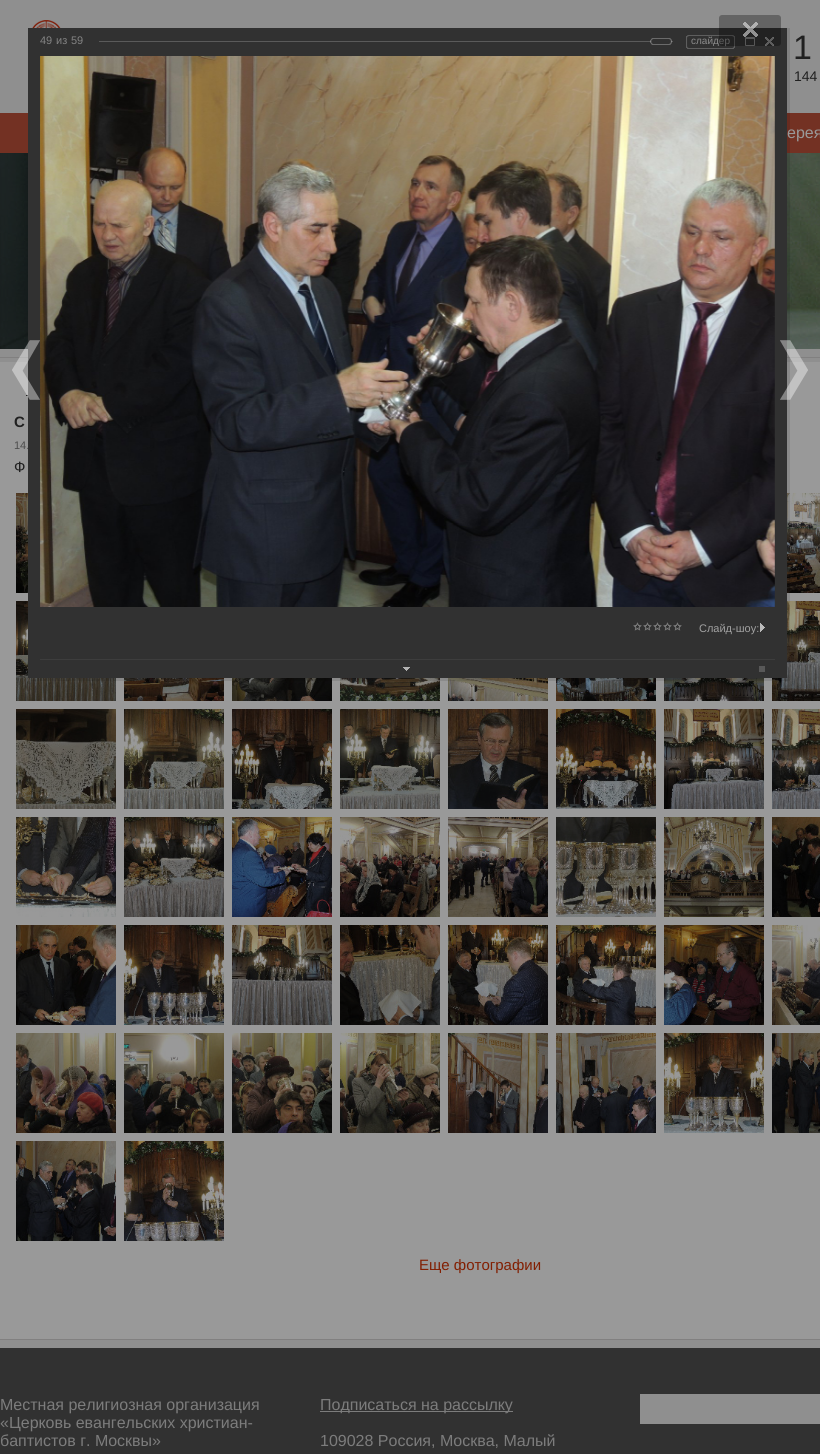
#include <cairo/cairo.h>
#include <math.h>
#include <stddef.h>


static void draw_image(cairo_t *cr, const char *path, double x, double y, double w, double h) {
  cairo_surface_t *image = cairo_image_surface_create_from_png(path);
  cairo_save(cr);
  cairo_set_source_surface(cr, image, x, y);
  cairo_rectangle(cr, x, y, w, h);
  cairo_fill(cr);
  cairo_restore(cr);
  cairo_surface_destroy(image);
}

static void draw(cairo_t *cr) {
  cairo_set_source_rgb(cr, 143 / 255.0, 143 / 255.0, 143 / 255.0);
  cairo_paint(cr);
  draw_image(cr, "images/1.png", 32, 20, 29, 8);
  cairo_set_source_rgb(cr, 115 / 255.0, 49 / 255.0, 35 / 255.0);
  cairo_rectangle(cr, 0, 113, 820, 40);
  cairo_fill(cr);
  cairo_set_source_rgb(cr, 129 / 255.0, 128 / 255.0, 128 / 255.0);
  cairo_rectangle(cr, 0, 357, 820, 1);
  cairo_fill(cr);
  draw_image(cr, "images/2.png", 0, 153, 820, 196);
  cairo_set_source_rgb(cr, 153 / 255.0, 153 / 255.0, 153 / 255.0);
  cairo_rectangle(cr, 0, 362, 820, 977);
  cairo_fill(cr);
  cairo_set_source_rgb(cr, 129 / 255.0, 128 / 255.0, 128 / 255.0);
  cairo_rectangle(cr, 0, 1339, 820, 1);
  cairo_fill(cr);
  cairo_set_source_rgb(cr, 32 / 255.0, 32 / 255.0, 32 / 255.0);
  cairo_rectangle(cr, 26, 395, 2, 1);
  cairo_fill(cr);
  draw_image(cr, "images/3.png", 16, 493, 12, 100);
  draw_image(cr, "images/4.png", 787, 493, 33, 100);
  draw_image(cr, "images/5.png", 16, 601, 100, 100);
  draw_image(cr, "images/6.png", 124, 678, 100, 23);
  draw_image(cr, "images/7.png", 232, 678, 100, 23);
  draw_image(cr, "images/8.png", 340, 678, 100, 23);
  draw_image(cr, "images/9.png", 448, 678, 100, 23);
  draw_image(cr, "images/10.png", 556, 678, 100, 23);
  draw_image(cr, "images/11.png", 664, 678, 100, 23);
  draw_image(cr, "images/12.png", 772, 601, 48, 100);
  draw_image(cr, "images/13.png", 16, 709, 100, 100);
  draw_image(cr, "images/14.png", 124, 709, 100, 100);
  draw_image(cr, "images/15.png", 232, 709, 100, 100);
  draw_image(cr, "images/16.png", 340, 709, 100, 100);
  draw_image(cr, "images/17.png", 448, 709, 100, 100);
  draw_image(cr, "images/18.png", 556, 709, 100, 100);
  draw_image(cr, "images/19.png", 664, 709, 100, 100);
  draw_image(cr, "images/20.png", 772, 709, 48, 100);
  draw_image(cr, "images/21.png", 16, 817, 100, 100);
  draw_image(cr, "images/22.png", 124, 817, 100, 100);
  draw_image(cr, "images/23.png", 232, 817, 100, 100);
  draw_image(cr, "images/24.png", 340, 817, 100, 100);
  draw_image(cr, "images/25.png", 448, 817, 100, 100);
  draw_image(cr, "images/26.png", 556, 817, 100, 100);
  draw_image(cr, "images/27.png", 664, 817, 100, 100);
  draw_image(cr, "images/28.png", 772, 817, 48, 100);
  draw_image(cr, "images/29.png", 16, 925, 100, 100);
  draw_image(cr, "images/30.png", 124, 925, 100, 100);
  draw_image(cr, "images/31.png", 232, 925, 100, 100);
  draw_image(cr, "images/32.png", 340, 925, 100, 100);
  draw_image(cr, "images/33.png", 448, 925, 100, 100);
  draw_image(cr, "images/34.png", 556, 925, 100, 100);
  draw_image(cr, "images/35.png", 664, 925, 100, 100);
  draw_image(cr, "images/36.png", 772, 925, 48, 100);
  draw_image(cr, "images/37.png", 16, 1033, 100, 100);
  draw_image(cr, "images/38.png", 124, 1033, 100, 100);
  draw_image(cr, "images/39.png", 232, 1033, 100, 100);
  draw_image(cr, "images/40.png", 340, 1033, 100, 100);
  draw_image(cr, "images/41.png", 448, 1033, 100, 100);
  draw_image(cr, "images/42.png", 556, 1033, 100, 100);
  draw_image(cr, "images/43.png", 664, 1033, 100, 100);
  draw_image(cr, "images/44.png", 772, 1033, 48, 100);
  draw_image(cr, "images/45.png", 16, 1141, 100, 100);
  draw_image(cr, "images/46.png", 124, 1141, 100, 100);
  cairo_set_source_rgba(cr, 0, 0, 0, 0.1);
  cairo_rectangle(cr, 31, 28, 759, 653);
  cairo_fill(cr);
  cairo_set_source_rgb(cr, 49 / 255.0, 49 / 255.0, 49 / 255.0);
  cairo_rectangle(cr, 0, 1348, 820, 106);
  cairo_fill(cr);
  cairo_set_source_rgb(cr, 124 / 255.0, 124 / 255.0, 124 / 255.0);
  cairo_rectangle(cr, 320, 1411, 193, 1);
  cairo_fill(cr);
  cairo_set_source_rgb(cr, 143 / 255.0, 143 / 255.0, 143 / 255.0);
  cairo_rectangle(cr, 640, 1394, 180, 30);
  cairo_fill(cr);
  cairo_select_font_face(cr, "Liberation Sans", CAIRO_FONT_SLANT_NORMAL, CAIRO_FONT_WEIGHT_NORMAL);
  cairo_set_font_size(cr, 34);
  cairo_set_source_rgb(cr, 32 / 255.0, 32 / 255.0, 32 / 255.0);
  cairo_move_to(cr, 793, 59);
  cairo_show_text(cr, "1");
  cairo_set_font_size(cr, 14);
  cairo_move_to(cr, 794, 81);
  cairo_show_text(cr, "144");
  cairo_set_font_size(cr, 16);
  cairo_set_source_rgb(cr, 153 / 255.0, 153 / 255.0, 153 / 255.0);
  cairo_move_to(cr, 787, 138);
  cairo_show_text(cr, "ерея");
  cairo_select_font_face(cr, "Liberation Sans", CAIRO_FONT_SLANT_NORMAL, CAIRO_FONT_WEIGHT_BOLD);
  cairo_set_font_size(cr, 15);
  cairo_set_source_rgb(cr, 32 / 255.0, 32 / 255.0, 32 / 255.0);
  cairo_move_to(cr, 14, 427);
  cairo_show_text(cr, "С");
  cairo_select_font_face(cr, "Liberation Sans", CAIRO_FONT_SLANT_NORMAL, CAIRO_FONT_WEIGHT_NORMAL);
  cairo_set_font_size(cr, 11);
  cairo_set_source_rgb(cr, 76 / 255.0, 76 / 255.0, 76 / 255.0);
  cairo_move_to(cr, 14, 449);
  cairo_show_text(cr, "14.");
  cairo_set_font_size(cr, 15);
  cairo_set_source_rgb(cr, 32 / 255.0, 32 / 255.0, 32 / 255.0);
  cairo_move_to(cr, 14, 472);
  cairo_show_text(cr, "Ф");
  cairo_set_source_rgb(cr, 130 / 255.0, 31 / 255.0, 2 / 255.0);
  cairo_move_to(cr, 419, 1270);
  cairo_show_text(cr, "Еще фотографии");
  cairo_set_source_rgb(cr, 49 / 255.0, 49 / 255.0, 49 / 255.0);
  cairo_rectangle(cr, 28, 28, 759, 650);
  cairo_fill(cr);
  draw_image(cr, "images/47.png", 12, 340, 28, 60);
  cairo_set_font_size(cr, 11);
  cairo_set_source_rgb(cr, 131 / 255.0, 131 / 255.0, 131 / 255.0);
  cairo_move_to(cr, 40, 44);
  cairo_show_text(cr, "49");
  cairo_move_to(cr, 56, 44);
  cairo_show_text(cr, "из");
  cairo_move_to(cr, 71, 44);
  cairo_show_text(cr, "59");
  cairo_set_source_rgb(cr, 90 / 255.0, 90 / 255.0, 90 / 255.0);
  cairo_rectangle(cr, 99, 41, 574, 1);
  cairo_fill(cr);
  draw_image(cr, "images/48.png", 650, 38, 22, 7);
  draw_image(cr, "images/49.png", 686, 35, 46, 14);
  cairo_set_font_size(cr, 10);
  cairo_set_source_rgb(cr, 140 / 255.0, 140 / 255.0, 140 / 255.0);
  cairo_move_to(cr, 691, 44);
  cairo_show_text(cr, "слайдер");
  draw_image(cr, "images/50.png", 732, 35, 3, 14);
  draw_image(cr, "images/51.png", 745, 37, 10, 9);
  draw_image(cr, "images/52.png", 765, 37, 9, 9);
  draw_image(cr, "images/53.png", 40, 56, 735, 551);
  cairo_set_source_rgb(cr, 61 / 255.0, 61 / 255.0, 61 / 255.0);
  cairo_rectangle(cr, 40, 659, 735, 1);
  cairo_fill(cr);
  draw_image(cr, "images/54.png", 633, 622, 9, 9);
  draw_image(cr, "images/54.png", 643, 622, 9, 9);
  draw_image(cr, "images/54.png", 653, 622, 9, 9);
  draw_image(cr, "images/54.png", 663, 622, 9, 9);
  draw_image(cr, "images/54.png", 673, 622, 9, 9);
  cairo_set_font_size(cr, 11);
  cairo_set_source_rgb(cr, 162 / 255.0, 162 / 255.0, 162 / 255.0);
  cairo_move_to(cr, 699, 632);
  cairo_show_text(cr, "Слайд-шоу:");
  draw_image(cr, "images/55.png", 760, 623, 5, 9);
  draw_image(cr, "images/56.png", 403, 667, 7, 4);
  cairo_set_source_rgb(cr, 88 / 255.0, 88 / 255.0, 88 / 255.0);
  cairo_rectangle(cr, 759, 666, 6, 6);
  cairo_fill(cr);
  draw_image(cr, "images/57.png", 719, 15, 62, 31);
  draw_image(cr, "images/58.png", 780, 340, 28, 60);
  cairo_set_font_size(cr, 16);
  cairo_set_source_rgb(cr, 124 / 255.0, 124 / 255.0, 124 / 255.0);
  cairo_move_to(cr, 0, 1410);
  cairo_show_text(cr, "Местная религиозная организация");
  cairo_move_to(cr, 0, 1428);
  cairo_show_text(cr, "«Церковь евангельских христиан-");
  cairo_move_to(cr, 0, 1446);
  cairo_show_text(cr, "баптистов г. Москвы»");
  cairo_move_to(cr, 320, 1410);
  cairo_show_text(cr, "Подписаться на рассылку");
  cairo_move_to(cr, 320, 1446);
  cairo_show_text(cr, "109028 Россия, Москва, Малый");
}

int main(void) {
  cairo_surface_t *surface = cairo_image_surface_create(CAIRO_FORMAT_RGB24, 820, 1454);
  cairo_t *cr = cairo_create(surface);
  cairo_font_options_t *options = cairo_font_options_create();
  cairo_font_options_set_hint_metrics(options, CAIRO_HINT_METRICS_OFF);
  cairo_font_options_set_hint_style(options, CAIRO_HINT_STYLE_NONE);
  cairo_set_font_options(cr, options);
  cairo_set_miter_limit(cr, 4);
  draw(cr);
  cairo_surface_write_to_png(surface, "out.png");
  cairo_font_options_destroy(options);
  cairo_destroy(cr);
  cairo_surface_destroy(surface);
  return 0;
}
